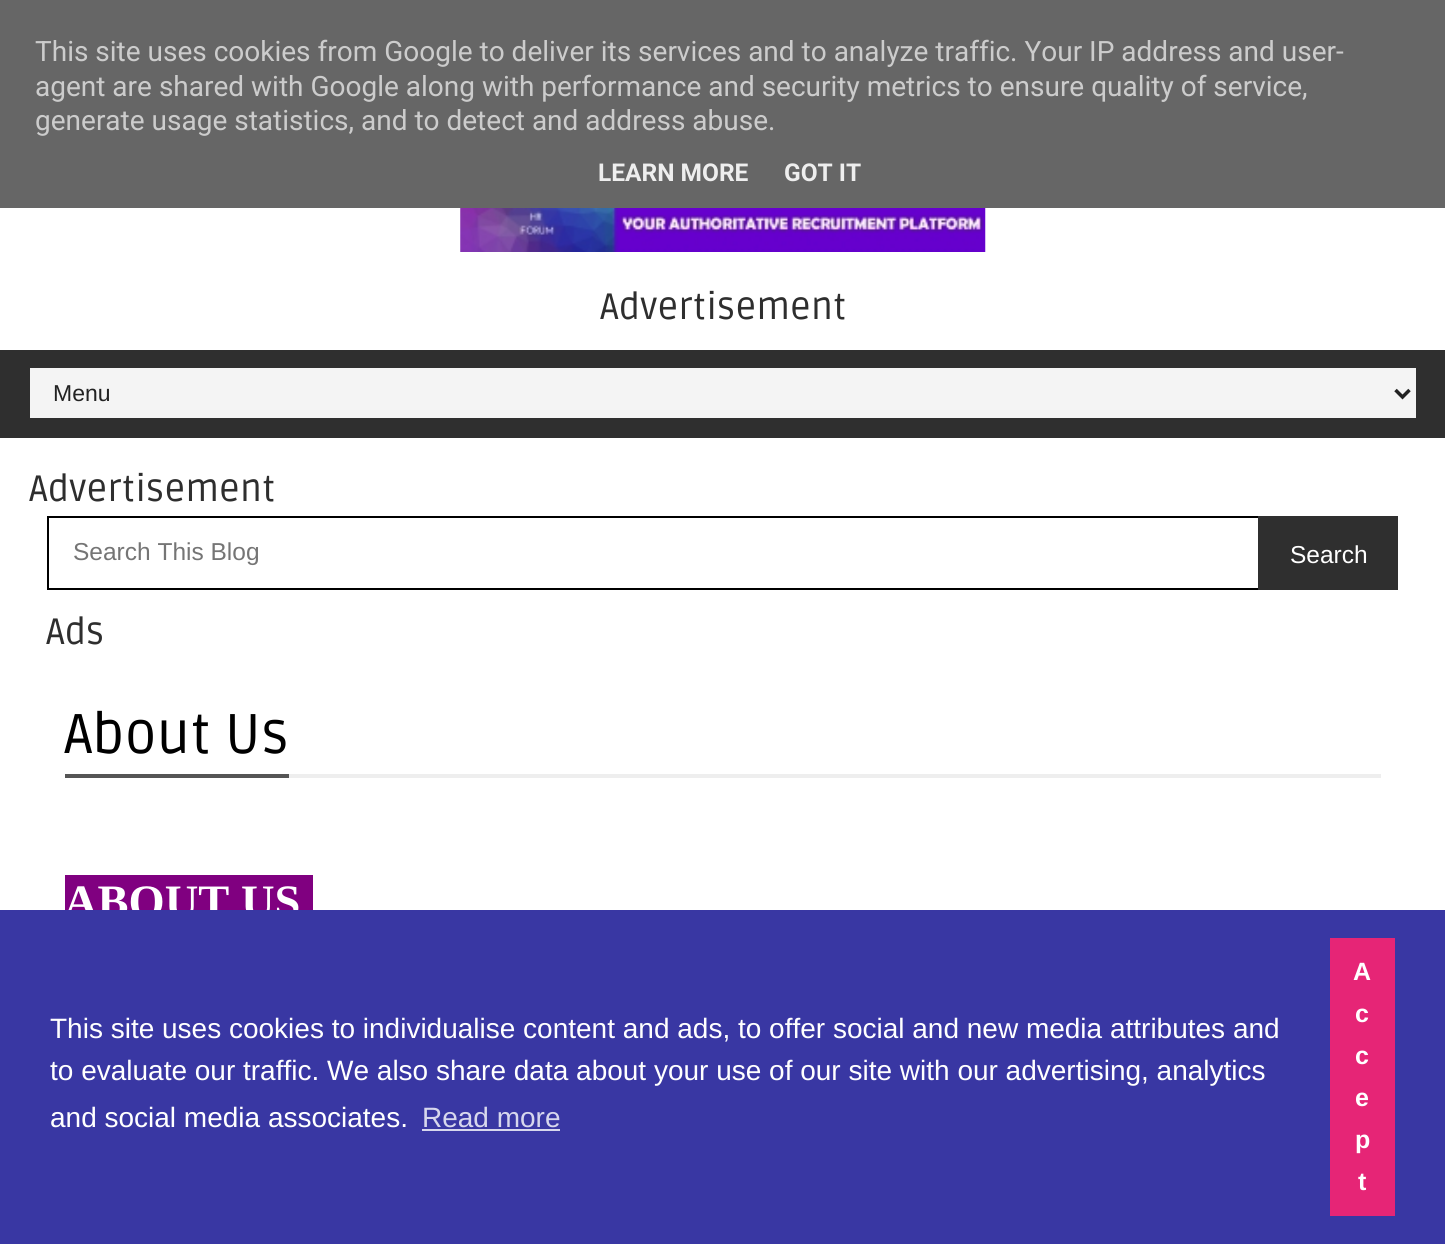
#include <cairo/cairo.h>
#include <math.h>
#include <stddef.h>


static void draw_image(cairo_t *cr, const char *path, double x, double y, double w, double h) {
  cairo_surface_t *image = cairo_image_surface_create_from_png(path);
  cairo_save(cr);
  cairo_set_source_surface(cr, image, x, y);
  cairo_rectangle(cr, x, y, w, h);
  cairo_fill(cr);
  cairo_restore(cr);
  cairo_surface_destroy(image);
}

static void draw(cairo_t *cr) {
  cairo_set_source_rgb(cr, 1, 1, 1);
  cairo_paint(cr);
  cairo_set_source_rgb(cr, 102 / 255.0, 102 / 255.0, 102 / 255.0);
  cairo_rectangle(cr, 0, 0, 1445, 208);
  cairo_fill(cr);
  draw_image(cr, "images/1.png", 460, 208, 526, 44);
  cairo_set_source_rgb(cr, 47 / 255.0, 47 / 255.0, 47 / 255.0);
  cairo_rectangle(cr, 0, 350, 1445, 88);
  cairo_fill(cr);
  cairo_set_source_rgb(cr, 244 / 255.0, 244 / 255.0, 244 / 255.0);
  cairo_rectangle(cr, 30, 368, 1386, 50);
  cairo_fill(cr);
  cairo_new_path(cr);
  cairo_move_to(cr, 1395.5, 390);
  cairo_line_to(cr, 1402.5, 397);
  cairo_line_to(cr, 1409.5, 390);
  cairo_set_source_rgb(cr, 34 / 255.0, 34 / 255.0, 34 / 255.0);
  cairo_set_line_width(cr, 3.5);
  cairo_stroke(cr);
  cairo_rectangle(cr, 48, 517, 1349, 72);
  cairo_set_source_rgb(cr, 0, 0, 0);
  cairo_set_line_width(cr, 2);
  cairo_stroke(cr);
  cairo_set_source_rgb(cr, 47 / 255.0, 47 / 255.0, 47 / 255.0);
  cairo_rectangle(cr, 1258, 516, 140, 74);
  cairo_fill(cr);
  cairo_set_source_rgb(cr, 238 / 255.0, 238 / 255.0, 238 / 255.0);
  cairo_rectangle(cr, 289, 774, 1092, 4);
  cairo_fill(cr);
  cairo_set_source_rgb(cr, 85 / 255.0, 85 / 255.0, 85 / 255.0);
  cairo_rectangle(cr, 65, 774, 224, 4);
  cairo_fill(cr);
  cairo_set_source_rgb(cr, 128 / 255.0, 0, 128 / 255.0);
  cairo_rectangle(cr, 65, 875, 248, 35);
  cairo_fill(cr);
  cairo_select_font_face(cr, "Roboto", CAIRO_FONT_SLANT_NORMAL, CAIRO_FONT_WEIGHT_NORMAL);
  cairo_set_font_size(cr, 28);
  cairo_set_source_rgb(cr, 204 / 255.0, 204 / 255.0, 204 / 255.0);
  cairo_move_to(cr, 35, 61);
  cairo_show_text(cr, "This site uses cookies from Google to deliver its services and to analyze traffic. Your IP address and user-");
  cairo_move_to(cr, 35, 96);
  cairo_show_text(cr, "agent are shared with Google along with performance and security metrics to ensure quality of service,");
  cairo_move_to(cr, 35, 130);
  cairo_show_text(cr, "generate usage statistics, and to detect and address abuse.");
  cairo_select_font_face(cr, "Roboto", CAIRO_FONT_SLANT_NORMAL, CAIRO_FONT_WEIGHT_BOLD);
  cairo_set_font_size(cr, 24.5);
  cairo_set_source_rgb(cr, 238 / 255.0, 238 / 255.0, 238 / 255.0);
  cairo_move_to(cr, 598, 181);
  cairo_show_text(cr, "LEARN MORE");
  cairo_move_to(cr, 784, 181);
  cairo_show_text(cr, "GOT IT");
  cairo_select_font_face(cr, "Ruda", CAIRO_FONT_SLANT_NORMAL, CAIRO_FONT_WEIGHT_NORMAL);
  cairo_set_font_size(cr, 36.75);
  cairo_set_source_rgb(cr, 46 / 255.0, 46 / 255.0, 46 / 255.0);
  cairo_move_to(cr, 600, 319);
  cairo_show_text(cr, "Advertisement");
  cairo_select_font_face(cr, "Liberation Sans", CAIRO_FONT_SLANT_NORMAL, CAIRO_FONT_WEIGHT_NORMAL);
  cairo_set_font_size(cr, 23);
  cairo_set_source_rgb(cr, 34 / 255.0, 34 / 255.0, 34 / 255.0);
  cairo_move_to(cr, 53, 401);
  cairo_show_text(cr, "Menu");
  cairo_select_font_face(cr, "Ruda", CAIRO_FONT_SLANT_NORMAL, CAIRO_FONT_WEIGHT_NORMAL);
  cairo_set_font_size(cr, 36.75);
  cairo_set_source_rgb(cr, 46 / 255.0, 46 / 255.0, 46 / 255.0);
  cairo_move_to(cr, 29, 501);
  cairo_show_text(cr, "Advertisement");
  cairo_select_font_face(cr, "Liberation Sans", CAIRO_FONT_SLANT_NORMAL, CAIRO_FONT_WEIGHT_NORMAL);
  cairo_set_font_size(cr, 24.5);
  cairo_set_source_rgb(cr, 117 / 255.0, 117 / 255.0, 117 / 255.0);
  cairo_move_to(cr, 73, 560);
  cairo_show_text(cr, "Search This Blog");
  cairo_set_source_rgb(cr, 1, 1, 1);
  cairo_move_to(cr, 1290, 563);
  cairo_show_text(cr, "Search");
  cairo_select_font_face(cr, "Ruda", CAIRO_FONT_SLANT_NORMAL, CAIRO_FONT_WEIGHT_NORMAL);
  cairo_set_font_size(cr, 36.75);
  cairo_set_source_rgb(cr, 46 / 255.0, 46 / 255.0, 46 / 255.0);
  cairo_move_to(cr, 46, 644);
  cairo_show_text(cr, "Ads");
  cairo_set_font_size(cr, 56);
  cairo_set_source_rgb(cr, 0, 0, 0);
  cairo_move_to(cr, 64, 753);
  cairo_show_text(cr, "About Us");
  cairo_select_font_face(cr, "Liberation Serif", CAIRO_FONT_SLANT_NORMAL, CAIRO_FONT_WEIGHT_BOLD);
  cairo_set_font_size(cr, 46.5);
  cairo_set_source_rgb(cr, 1, 1, 1);
  cairo_move_to(cr, 64, 917);
  cairo_show_text(cr, "ABOUT US");
  cairo_set_source_rgb(cr, 57 / 255.0, 55 / 255.0, 163 / 255.0);
  cairo_rectangle(cr, 0, 910, 1445, 334);
  cairo_fill(cr);
  cairo_select_font_face(cr, "Liberation Sans", CAIRO_FONT_SLANT_NORMAL, CAIRO_FONT_WEIGHT_NORMAL);
  cairo_set_font_size(cr, 28);
  cairo_set_source_rgb(cr, 1, 1, 1);
  cairo_move_to(cr, 50, 1038);
  cairo_show_text(cr, "This site uses cookies to individualise content and ads, to offer social and new media attributes and");
  cairo_move_to(cr, 50, 1080);
  cairo_show_text(cr, "to evaluate our traffic. We also share data about your use of our site with our advertising, analytics");
  cairo_move_to(cr, 50, 1127);
  cairo_show_text(cr, "and social media associates.");
  cairo_set_source_rgb(cr, 215 / 255.0, 215 / 255.0, 237 / 255.0);
  cairo_move_to(cr, 422, 1127);
  cairo_show_text(cr, "Read more");
  cairo_rectangle(cr, 422, 1129, 138, 2);
  cairo_fill(cr);
  cairo_set_source_rgb(cr, 230 / 255.0, 37 / 255.0, 118 / 255.0);
  cairo_rectangle(cr, 1330, 938, 65, 278);
  cairo_fill(cr);
  cairo_select_font_face(cr, "Liberation Sans", CAIRO_FONT_SLANT_NORMAL, CAIRO_FONT_WEIGHT_BOLD);
  cairo_set_font_size(cr, 25);
  cairo_set_source_rgb(cr, 1, 1, 1);
  cairo_move_to(cr, 1353, 980);
  cairo_show_text(cr, "A");
  cairo_move_to(cr, 1355, 1022);
  cairo_show_text(cr, "c");
  cairo_move_to(cr, 1355, 1064);
  cairo_show_text(cr, "c");
  cairo_move_to(cr, 1355, 1106);
  cairo_show_text(cr, "e");
  cairo_move_to(cr, 1355, 1148);
  cairo_show_text(cr, "p");
  cairo_move_to(cr, 1358, 1190);
  cairo_show_text(cr, "t");
}

int main(void) {
  cairo_surface_t *surface = cairo_image_surface_create(CAIRO_FORMAT_RGB24, 1445, 1244);
  cairo_t *cr = cairo_create(surface);
  cairo_font_options_t *options = cairo_font_options_create();
  cairo_font_options_set_hint_metrics(options, CAIRO_HINT_METRICS_OFF);
  cairo_font_options_set_hint_style(options, CAIRO_HINT_STYLE_NONE);
  cairo_set_font_options(cr, options);
  cairo_set_miter_limit(cr, 4);
  draw(cr);
  cairo_surface_write_to_png(surface, "out.png");
  cairo_font_options_destroy(options);
  cairo_destroy(cr);
  cairo_surface_destroy(surface);
  return 0;
}
